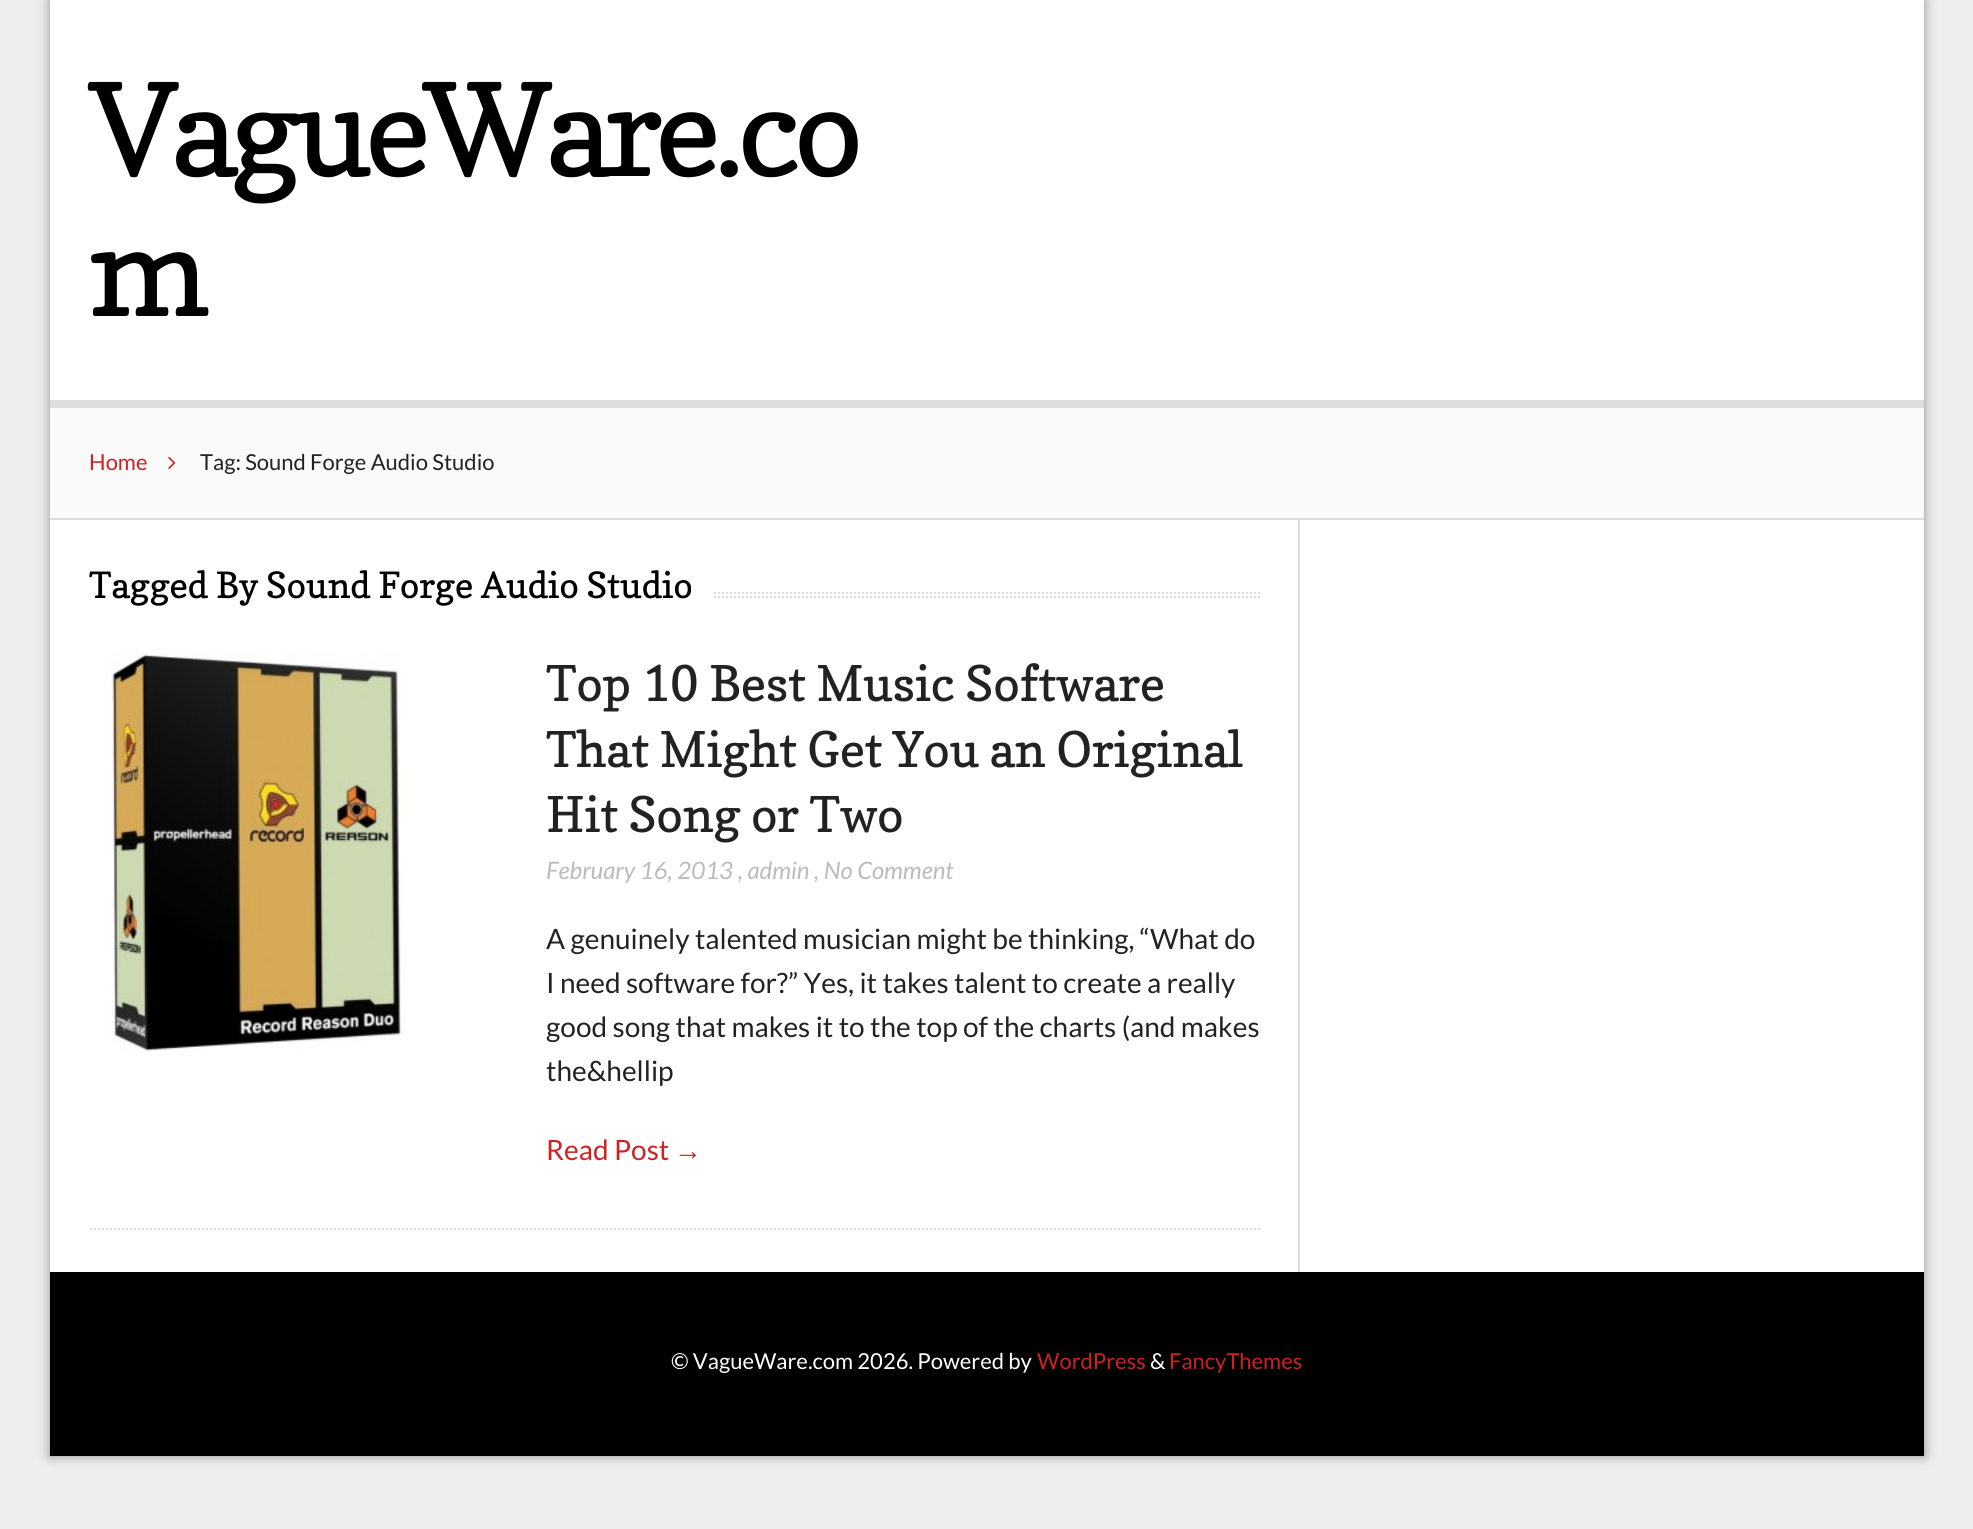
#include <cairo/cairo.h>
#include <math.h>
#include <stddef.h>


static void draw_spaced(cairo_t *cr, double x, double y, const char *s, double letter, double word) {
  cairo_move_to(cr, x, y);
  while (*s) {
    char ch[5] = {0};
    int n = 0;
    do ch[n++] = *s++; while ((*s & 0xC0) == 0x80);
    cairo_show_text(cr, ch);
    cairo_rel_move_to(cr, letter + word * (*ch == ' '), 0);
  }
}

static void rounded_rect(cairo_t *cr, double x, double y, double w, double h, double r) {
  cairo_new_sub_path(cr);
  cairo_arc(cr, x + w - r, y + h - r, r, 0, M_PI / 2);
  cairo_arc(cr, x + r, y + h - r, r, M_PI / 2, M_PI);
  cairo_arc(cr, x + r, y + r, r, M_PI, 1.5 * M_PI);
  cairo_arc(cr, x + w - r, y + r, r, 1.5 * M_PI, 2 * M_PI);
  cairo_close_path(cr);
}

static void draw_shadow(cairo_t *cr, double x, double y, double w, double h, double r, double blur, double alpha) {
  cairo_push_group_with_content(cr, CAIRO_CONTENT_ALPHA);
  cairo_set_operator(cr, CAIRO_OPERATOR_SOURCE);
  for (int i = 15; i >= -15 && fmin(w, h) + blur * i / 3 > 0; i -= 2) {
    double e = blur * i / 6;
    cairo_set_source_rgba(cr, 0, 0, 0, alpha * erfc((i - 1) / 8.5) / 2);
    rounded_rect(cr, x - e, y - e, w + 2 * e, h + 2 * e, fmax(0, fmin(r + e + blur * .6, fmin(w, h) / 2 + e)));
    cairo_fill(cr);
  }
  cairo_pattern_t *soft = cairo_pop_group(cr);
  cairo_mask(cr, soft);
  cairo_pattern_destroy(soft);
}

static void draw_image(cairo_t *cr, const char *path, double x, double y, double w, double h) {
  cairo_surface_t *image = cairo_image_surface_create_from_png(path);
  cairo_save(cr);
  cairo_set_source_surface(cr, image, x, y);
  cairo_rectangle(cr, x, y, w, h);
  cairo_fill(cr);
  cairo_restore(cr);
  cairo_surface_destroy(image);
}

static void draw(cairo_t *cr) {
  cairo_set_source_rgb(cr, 238 / 255.0, 238 / 255.0, 238 / 255.0);
  cairo_paint(cr);
  cairo_set_source_rgb(cr, 0, 0, 0);
  draw_shadow(cr, 50, 0, 1874, 1456, 0, 6, 0.4);
  cairo_set_source_rgb(cr, 1, 1, 1);
  cairo_rectangle(cr, 50, 0, 1874, 1272);
  cairo_fill(cr);
  cairo_set_source_rgb(cr, 221 / 255.0, 221 / 255.0, 221 / 255.0);
  cairo_rectangle(cr, 50, 400, 1874, 8);
  cairo_fill(cr);
  cairo_set_source_rgb(cr, 250 / 255.0, 250 / 255.0, 250 / 255.0);
  cairo_rectangle(cr, 50, 408, 1874, 110);
  cairo_fill(cr);
  cairo_set_source_rgb(cr, 221 / 255.0, 221 / 255.0, 221 / 255.0);
  cairo_rectangle(cr, 50, 518, 1874, 2);
  cairo_fill(cr);
  draw_image(cr, "images/1.png", 168, 456, 8, 13);
  cairo_new_path(cr);
  cairo_move_to(cr, 90, 593);
  cairo_line_to(cr, 1260, 593);
  cairo_set_dash(cr, (double[]){2, 2}, 2, 0);
  cairo_stroke(cr);
  cairo_new_path(cr);
  cairo_move_to(cr, 90, 597);
  cairo_line_to(cr, 1260, 597);
  cairo_stroke(cr);
  cairo_set_source_rgb(cr, 1, 1, 1);
  cairo_rectangle(cr, 90, 592, 622, 6);
  cairo_fill(cr);
  draw_image(cr, "images/2.png", 110, 652, 295, 400);
  cairo_new_path(cr);
  cairo_move_to(cr, 90, 1229);
  cairo_line_to(cr, 1260, 1229);
  cairo_set_source_rgb(cr, 221 / 255.0, 221 / 255.0, 221 / 255.0);
  cairo_stroke(cr);
  cairo_rectangle(cr, 1298, 520, 2, 752);
  cairo_fill(cr);
  cairo_set_source_rgb(cr, 0, 0, 0);
  cairo_rectangle(cr, 50, 1272, 1874, 184);
  cairo_fill(cr);
  cairo_select_font_face(cr, "Copse", CAIRO_FONT_SLANT_NORMAL, CAIRO_FONT_WEIGHT_NORMAL);
  cairo_set_font_size(cr, 128);
  draw_spaced(cr, 89, 176, "VagueWare.co", -6.4, 0);
  draw_spaced(cr, 89, 316, "m", -6.4, 0);
  cairo_select_font_face(cr, "Lato", CAIRO_FONT_SLANT_NORMAL, CAIRO_FONT_WEIGHT_NORMAL);
  cairo_set_font_size(cr, 22);
  cairo_set_source_rgb(cr, 204 / 255.0, 34 / 255.0, 34 / 255.0);
  cairo_move_to(cr, 89, 470);
  cairo_show_text(cr, "Home");
  cairo_set_source_rgb(cr, 34 / 255.0, 34 / 255.0, 34 / 255.0);
  cairo_move_to(cr, 200, 470);
  cairo_show_text(cr, "Tag: Sound Forge Audio Studio");
  cairo_select_font_face(cr, "Copse", CAIRO_FONT_SLANT_NORMAL, CAIRO_FONT_WEIGHT_NORMAL);
  cairo_set_font_size(cr, 36);
  cairo_set_source_rgb(cr, 0, 0, 0);
  cairo_move_to(cr, 89, 598);
  cairo_show_text(cr, "Tagged By Sound Forge Audio Studio");
  cairo_set_font_size(cr, 49);
  cairo_set_source_rgb(cr, 34 / 255.0, 34 / 255.0, 34 / 255.0);
  cairo_move_to(cr, 546, 701);
  cairo_show_text(cr, "Top 10 Best Music Software");
  cairo_move_to(cr, 546, 767);
  cairo_show_text(cr, "That Might Get You an Original");
  cairo_move_to(cr, 546, 832);
  cairo_show_text(cr, "Hit Song or Two");
  cairo_select_font_face(cr, "Lato", CAIRO_FONT_SLANT_ITALIC, CAIRO_FONT_WEIGHT_NORMAL);
  cairo_set_font_size(cr, 24);
  cairo_set_source_rgb(cr, 187 / 255.0, 187 / 255.0, 187 / 255.0);
  cairo_move_to(cr, 546, 879);
  cairo_show_text(cr, "February 16, 2013 , admin , No Comment");
  cairo_select_font_face(cr, "Lato", CAIRO_FONT_SLANT_NORMAL, CAIRO_FONT_WEIGHT_NORMAL);
  cairo_set_font_size(cr, 28);
  cairo_set_source_rgb(cr, 34 / 255.0, 34 / 255.0, 34 / 255.0);
  cairo_move_to(cr, 546, 949);
  cairo_show_text(cr, "A genuinely talented musician might be thinking, “What do");
  cairo_move_to(cr, 546, 993);
  cairo_show_text(cr, "I need software for?” Yes, it takes talent to create a really");
  cairo_move_to(cr, 546, 1037);
  cairo_show_text(cr, "good song that makes it to the top of the charts (and makes");
  cairo_move_to(cr, 546, 1081);
  cairo_show_text(cr, "the&hellip");
  cairo_set_source_rgb(cr, 204 / 255.0, 34 / 255.0, 34 / 255.0);
  cairo_move_to(cr, 546, 1160);
  cairo_show_text(cr, "Read Post");
  cairo_select_font_face(cr, "Liberation Sans", CAIRO_FONT_SLANT_NORMAL, CAIRO_FONT_WEIGHT_NORMAL);
  cairo_move_to(cr, 674, 1160);
  cairo_show_text(cr, "→");
  cairo_select_font_face(cr, "Lato", CAIRO_FONT_SLANT_NORMAL, CAIRO_FONT_WEIGHT_NORMAL);
  cairo_set_font_size(cr, 22);
  cairo_set_source_rgb(cr, 1, 1, 1);
  cairo_move_to(cr, 671, 1369);
  cairo_show_text(cr, "© VagueWare.com 2026. Powered by");
  cairo_set_source_rgb(cr, 204 / 255.0, 34 / 255.0, 34 / 255.0);
  cairo_move_to(cr, 1037, 1369);
  cairo_show_text(cr, "WordPress");
  cairo_set_source_rgb(cr, 1, 1, 1);
  cairo_move_to(cr, 1150, 1369);
  cairo_show_text(cr, "&");
  cairo_set_source_rgb(cr, 204 / 255.0, 34 / 255.0, 34 / 255.0);
  cairo_move_to(cr, 1169, 1369);
  cairo_show_text(cr, "FancyThemes");
}

int main(void) {
  cairo_surface_t *surface = cairo_image_surface_create(CAIRO_FORMAT_RGB24, 1973, 1529);
  cairo_t *cr = cairo_create(surface);
  cairo_font_options_t *options = cairo_font_options_create();
  cairo_font_options_set_hint_metrics(options, CAIRO_HINT_METRICS_OFF);
  cairo_font_options_set_hint_style(options, CAIRO_HINT_STYLE_NONE);
  cairo_set_font_options(cr, options);
  cairo_set_miter_limit(cr, 4);
  draw(cr);
  cairo_surface_write_to_png(surface, "out.png");
  cairo_font_options_destroy(options);
  cairo_destroy(cr);
  cairo_surface_destroy(surface);
  return 0;
}
